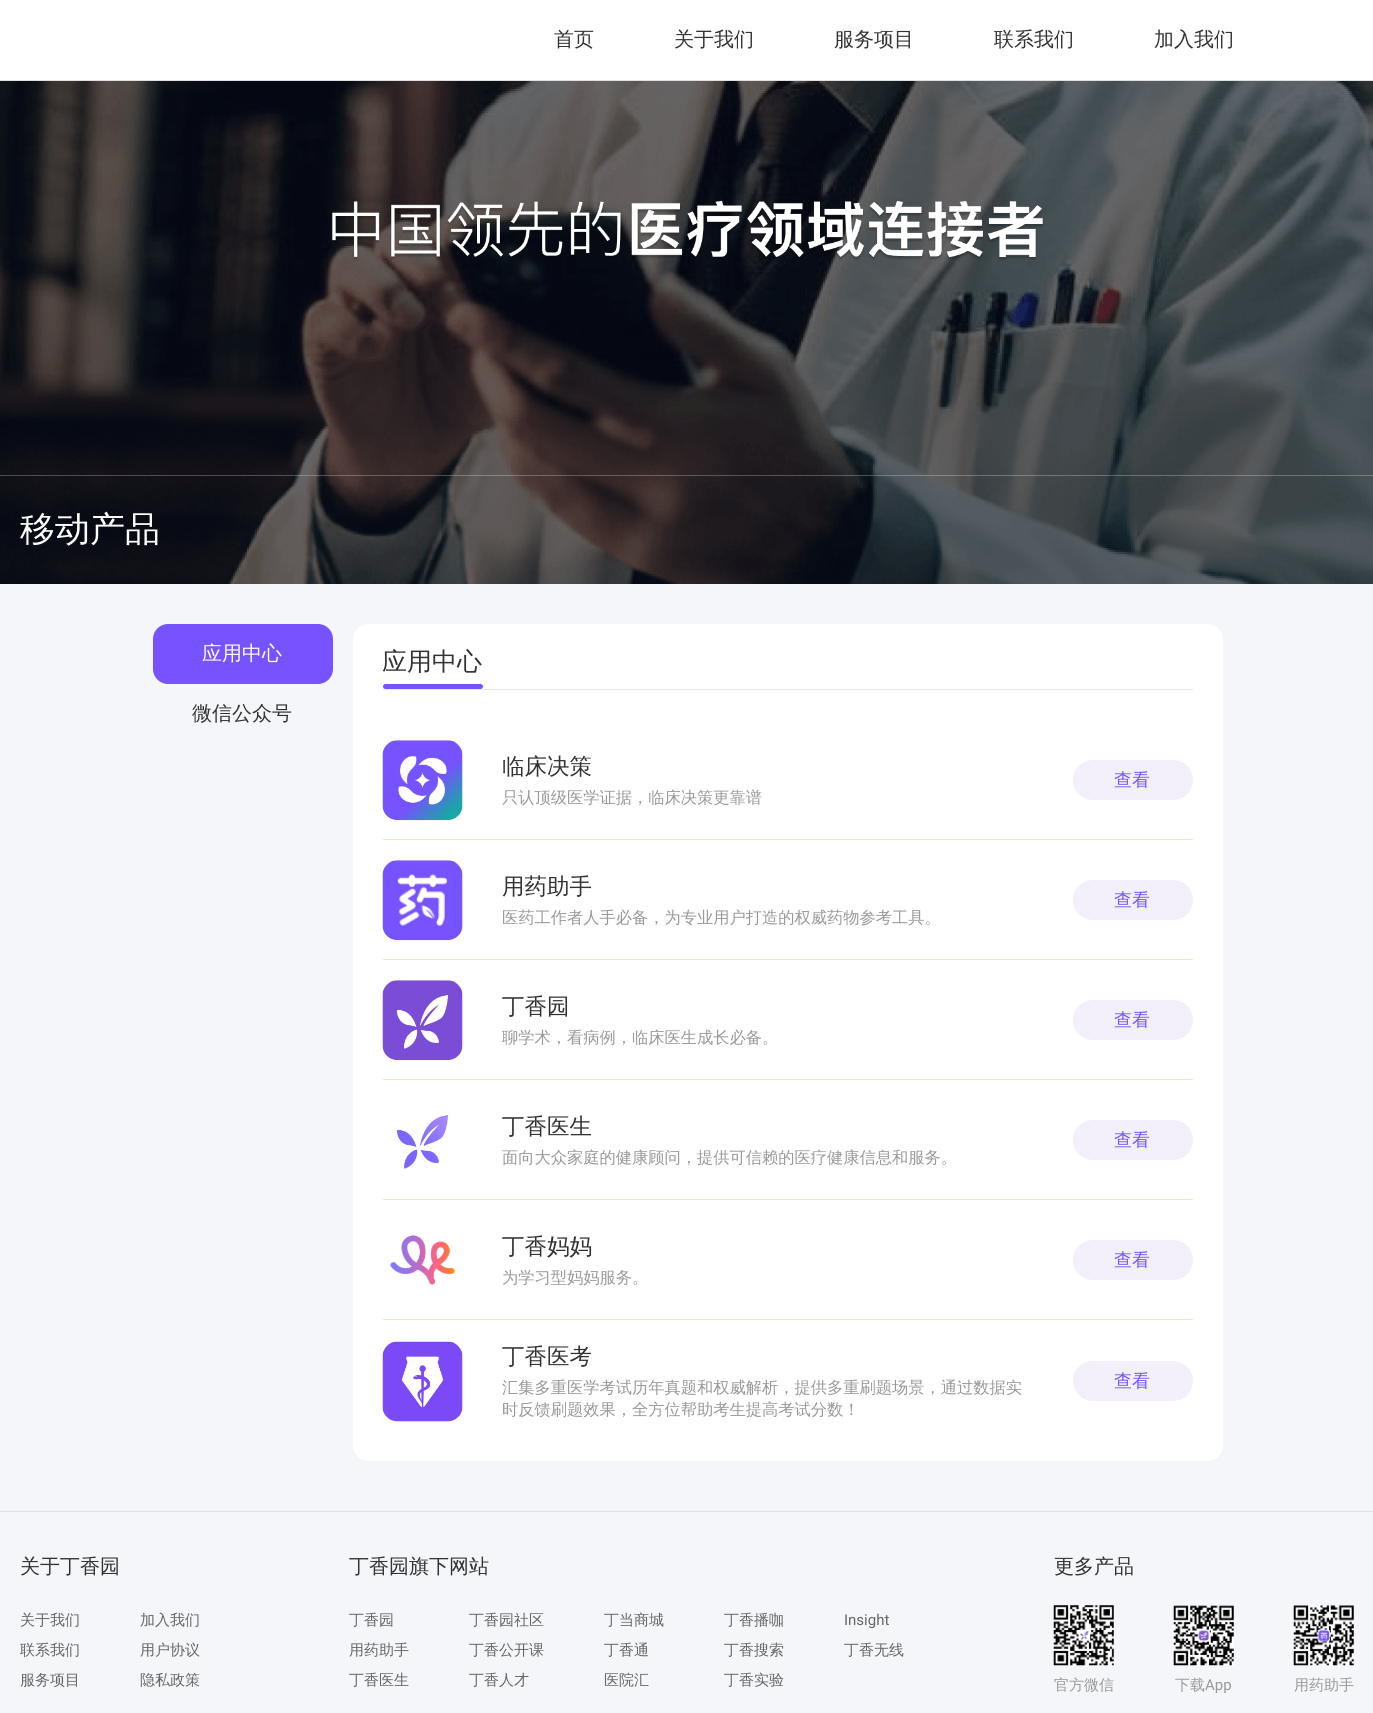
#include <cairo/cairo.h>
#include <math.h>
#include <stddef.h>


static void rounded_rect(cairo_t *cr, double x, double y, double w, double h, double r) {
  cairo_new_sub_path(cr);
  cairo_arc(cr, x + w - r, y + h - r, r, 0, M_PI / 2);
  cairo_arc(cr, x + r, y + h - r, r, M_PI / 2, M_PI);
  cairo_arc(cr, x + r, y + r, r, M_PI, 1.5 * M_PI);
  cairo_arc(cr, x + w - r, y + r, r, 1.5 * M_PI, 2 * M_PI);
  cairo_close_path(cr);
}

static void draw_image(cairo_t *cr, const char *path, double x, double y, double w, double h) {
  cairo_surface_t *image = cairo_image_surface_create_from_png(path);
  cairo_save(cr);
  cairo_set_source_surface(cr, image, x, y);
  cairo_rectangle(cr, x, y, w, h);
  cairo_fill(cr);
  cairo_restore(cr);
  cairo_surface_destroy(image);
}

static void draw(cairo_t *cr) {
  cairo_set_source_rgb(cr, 245 / 255.0, 246 / 255.0, 249 / 255.0);
  cairo_paint(cr);
  cairo_set_source_rgb(cr, 1, 1, 1);
  cairo_rectangle(cr, 0, 0, 1373, 80);
  cairo_fill(cr);
  cairo_set_source_rgb(cr, 224 / 255.0, 224 / 255.0, 224 / 255.0);
  cairo_rectangle(cr, 0, 80, 1373, 1);
  cairo_fill(cr);
  draw_image(cr, "images/1.png", 0, 81, 1373, 503);
  draw_image(cr, "images/2.png", 332, 200, 712, 61);
  cairo_set_source_rgba(cr, 1, 1, 1, 0.25);
  cairo_rectangle(cr, 0, 475, 1373, 1);
  cairo_fill(cr);
  cairo_set_source_rgb(cr, 119 / 255.0, 83 / 255.0, 1);
  rounded_rect(cr, 153, 624, 180, 60, 15);
  cairo_fill(cr);
  cairo_set_source_rgb(cr, 1, 1, 1);
  rounded_rect(cr, 353, 624, 870, 837, 15);
  cairo_fill(cr);
  cairo_set_source_rgb(cr, 232 / 255.0, 232 / 255.0, 232 / 255.0);
  cairo_rectangle(cr, 383, 689, 810, 1);
  cairo_fill(cr);
  cairo_set_source_rgb(cr, 119 / 255.0, 83 / 255.0, 1);
  rounded_rect(cr, 383, 684, 100, 5, 2.5);
  cairo_fill(cr);
  draw_image(cr, "images/3.png", 382, 740, 81, 81);
  cairo_set_source_rgb(cr, 243 / 255.0, 240 / 255.0, 252 / 255.0);
  rounded_rect(cr, 1073, 760, 120, 40, 20);
  cairo_fill(cr);
  cairo_set_source_rgb(cr, 248 / 255.0, 226 / 255.0, 196 / 255.0);
  rounded_rect(cr, 383, 839, 810, 1, 0.5);
  cairo_fill(cr);
  draw_image(cr, "images/4.png", 382, 860, 81, 81);
  cairo_set_source_rgb(cr, 243 / 255.0, 240 / 255.0, 252 / 255.0);
  rounded_rect(cr, 1073, 880, 120, 40, 20);
  cairo_fill(cr);
  cairo_set_source_rgb(cr, 248 / 255.0, 226 / 255.0, 196 / 255.0);
  rounded_rect(cr, 383, 959, 810, 1, 0.5);
  cairo_fill(cr);
  draw_image(cr, "images/5.png", 382, 980, 81, 81);
  cairo_set_source_rgb(cr, 243 / 255.0, 240 / 255.0, 252 / 255.0);
  rounded_rect(cr, 1073, 1000, 120, 40, 20);
  cairo_fill(cr);
  cairo_set_source_rgb(cr, 248 / 255.0, 226 / 255.0, 196 / 255.0);
  rounded_rect(cr, 383, 1079, 810, 1, 0.5);
  cairo_fill(cr);
  draw_image(cr, "images/6.png", 397, 1115, 51, 54);
  cairo_set_source_rgb(cr, 243 / 255.0, 240 / 255.0, 252 / 255.0);
  rounded_rect(cr, 1073, 1120, 120, 40, 20);
  cairo_fill(cr);
  cairo_set_source_rgb(cr, 248 / 255.0, 226 / 255.0, 196 / 255.0);
  rounded_rect(cr, 383, 1199, 810, 1, 0.5);
  cairo_fill(cr);
  draw_image(cr, "images/7.png", 390, 1235, 65, 50);
  cairo_set_source_rgb(cr, 243 / 255.0, 240 / 255.0, 252 / 255.0);
  rounded_rect(cr, 1073, 1240, 120, 40, 20);
  cairo_fill(cr);
  cairo_set_source_rgb(cr, 248 / 255.0, 226 / 255.0, 196 / 255.0);
  rounded_rect(cr, 383, 1319, 810, 1, 0.5);
  cairo_fill(cr);
  draw_image(cr, "images/8.png", 382, 1341, 81, 81);
  cairo_set_source_rgb(cr, 243 / 255.0, 240 / 255.0, 252 / 255.0);
  rounded_rect(cr, 1073, 1361, 120, 40, 20);
  cairo_fill(cr);
  cairo_set_source_rgb(cr, 224 / 255.0, 224 / 255.0, 224 / 255.0);
  cairo_rectangle(cr, 0, 1511, 1373, 1);
  cairo_fill(cr);
  draw_image(cr, "images/9.png", 1053, 1605, 61, 61);
  draw_image(cr, "images/10.png", 1173, 1605, 61, 61);
  draw_image(cr, "images/11.png", 1293, 1605, 61, 61);
  cairo_select_font_face(cr, "WenQuanYi Zen Hei Medium", CAIRO_FONT_SLANT_NORMAL, CAIRO_FONT_WEIGHT_NORMAL);
  cairo_set_font_size(cr, 20);
  cairo_set_source_rgb(cr, 51 / 255.0, 51 / 255.0, 51 / 255.0);
  cairo_move_to(cr, 554, 46);
  cairo_show_text(cr, "首页");
  cairo_move_to(cr, 674, 46);
  cairo_show_text(cr, "关于我们");
  cairo_move_to(cr, 834, 46);
  cairo_show_text(cr, "服务项目");
  cairo_move_to(cr, 994, 46);
  cairo_show_text(cr, "联系我们");
  cairo_move_to(cr, 1154, 46);
  cairo_show_text(cr, "加入我们");
  cairo_set_font_size(cr, 35);
  cairo_set_source_rgb(cr, 1, 1, 1);
  cairo_move_to(cr, 20, 541);
  cairo_show_text(cr, "移动产品");
  cairo_set_font_size(cr, 20);
  cairo_move_to(cr, 202, 660);
  cairo_show_text(cr, "应用中心");
  cairo_set_source_rgb(cr, 51 / 255.0, 51 / 255.0, 51 / 255.0);
  cairo_move_to(cr, 192, 720);
  cairo_show_text(cr, "微信公众号");
  cairo_set_font_size(cr, 25);
  cairo_move_to(cr, 382, 670);
  cairo_show_text(cr, "应用中心");
  cairo_set_font_size(cr, 22.5);
  cairo_move_to(cr, 502, 774);
  cairo_show_text(cr, "临床决策");
  cairo_set_font_size(cr, 16.25);
  cairo_set_source_rgb(cr, 153 / 255.0, 153 / 255.0, 153 / 255.0);
  cairo_move_to(cr, 502, 803);
  cairo_show_text(cr, "只认顶级医学证据，临床决策更靠谱");
  cairo_set_font_size(cr, 18);
  cairo_set_source_rgb(cr, 119 / 255.0, 83 / 255.0, 1);
  cairo_move_to(cr, 1114, 786);
  cairo_show_text(cr, "查看");
  cairo_set_font_size(cr, 22.5);
  cairo_set_source_rgb(cr, 51 / 255.0, 51 / 255.0, 51 / 255.0);
  cairo_move_to(cr, 502, 894);
  cairo_show_text(cr, "用药助手");
  cairo_set_font_size(cr, 16.25);
  cairo_set_source_rgb(cr, 153 / 255.0, 153 / 255.0, 153 / 255.0);
  cairo_move_to(cr, 502, 923);
  cairo_show_text(cr, "医药工作者人手必备，为专业用户打造的权威药物参考工具。");
  cairo_set_font_size(cr, 18);
  cairo_set_source_rgb(cr, 119 / 255.0, 83 / 255.0, 1);
  cairo_move_to(cr, 1114, 906);
  cairo_show_text(cr, "查看");
  cairo_set_font_size(cr, 22.5);
  cairo_set_source_rgb(cr, 51 / 255.0, 51 / 255.0, 51 / 255.0);
  cairo_move_to(cr, 502, 1014);
  cairo_show_text(cr, "丁香园");
  cairo_set_font_size(cr, 16.25);
  cairo_set_source_rgb(cr, 153 / 255.0, 153 / 255.0, 153 / 255.0);
  cairo_move_to(cr, 502, 1043);
  cairo_show_text(cr, "聊学术，看病例，临床医生成长必备。");
  cairo_set_font_size(cr, 18);
  cairo_set_source_rgb(cr, 119 / 255.0, 83 / 255.0, 1);
  cairo_move_to(cr, 1114, 1026);
  cairo_show_text(cr, "查看");
  cairo_set_font_size(cr, 22.5);
  cairo_set_source_rgb(cr, 51 / 255.0, 51 / 255.0, 51 / 255.0);
  cairo_move_to(cr, 502, 1134);
  cairo_show_text(cr, "丁香医生");
  cairo_set_font_size(cr, 16.25);
  cairo_set_source_rgb(cr, 153 / 255.0, 153 / 255.0, 153 / 255.0);
  cairo_move_to(cr, 502, 1163);
  cairo_show_text(cr, "面向大众家庭的健康顾问，提供可信赖的医疗健康信息和服务。");
  cairo_set_font_size(cr, 18);
  cairo_set_source_rgb(cr, 119 / 255.0, 83 / 255.0, 1);
  cairo_move_to(cr, 1114, 1146);
  cairo_show_text(cr, "查看");
  cairo_set_font_size(cr, 22.5);
  cairo_set_source_rgb(cr, 51 / 255.0, 51 / 255.0, 51 / 255.0);
  cairo_move_to(cr, 502, 1254);
  cairo_show_text(cr, "丁香妈妈");
  cairo_set_font_size(cr, 16.25);
  cairo_set_source_rgb(cr, 153 / 255.0, 153 / 255.0, 153 / 255.0);
  cairo_move_to(cr, 502, 1283);
  cairo_show_text(cr, "为学习型妈妈服务。");
  cairo_set_font_size(cr, 18);
  cairo_set_source_rgb(cr, 119 / 255.0, 83 / 255.0, 1);
  cairo_move_to(cr, 1114, 1266);
  cairo_show_text(cr, "查看");
  cairo_set_font_size(cr, 22.5);
  cairo_set_source_rgb(cr, 51 / 255.0, 51 / 255.0, 51 / 255.0);
  cairo_move_to(cr, 502, 1364);
  cairo_show_text(cr, "丁香医考");
  cairo_set_font_size(cr, 16.25);
  cairo_set_source_rgb(cr, 153 / 255.0, 153 / 255.0, 153 / 255.0);
  cairo_move_to(cr, 502, 1393);
  cairo_show_text(cr, "汇集多重医学考试历年真题和权威解析，提供多重刷题场景，通过数据实");
  cairo_move_to(cr, 502, 1415);
  cairo_show_text(cr, "时反馈刷题效果，全方位帮助考生提高考试分数！");
  cairo_set_font_size(cr, 18);
  cairo_set_source_rgb(cr, 119 / 255.0, 83 / 255.0, 1);
  cairo_move_to(cr, 1114, 1387);
  cairo_show_text(cr, "查看");
  cairo_set_font_size(cr, 20);
  cairo_set_source_rgb(cr, 51 / 255.0, 51 / 255.0, 51 / 255.0);
  cairo_move_to(cr, 20, 1573);
  cairo_show_text(cr, "关于丁香园");
  cairo_set_font_size(cr, 15);
  cairo_set_source_rgb(cr, 102 / 255.0, 102 / 255.0, 102 / 255.0);
  cairo_move_to(cr, 20, 1625);
  cairo_show_text(cr, "关于我们");
  cairo_move_to(cr, 20, 1655);
  cairo_show_text(cr, "联系我们");
  cairo_move_to(cr, 20, 1685);
  cairo_show_text(cr, "服务项目");
  cairo_move_to(cr, 140, 1625);
  cairo_show_text(cr, "加入我们");
  cairo_move_to(cr, 140, 1655);
  cairo_show_text(cr, "用户协议");
  cairo_move_to(cr, 140, 1685);
  cairo_show_text(cr, "隐私政策");
  cairo_set_font_size(cr, 20);
  cairo_set_source_rgb(cr, 51 / 255.0, 51 / 255.0, 51 / 255.0);
  cairo_move_to(cr, 349, 1573);
  cairo_show_text(cr, "丁香园旗下网站");
  cairo_set_font_size(cr, 15);
  cairo_set_source_rgb(cr, 102 / 255.0, 102 / 255.0, 102 / 255.0);
  cairo_move_to(cr, 349, 1625);
  cairo_show_text(cr, "丁香园");
  cairo_move_to(cr, 349, 1655);
  cairo_show_text(cr, "用药助手");
  cairo_move_to(cr, 349, 1685);
  cairo_show_text(cr, "丁香医生");
  cairo_move_to(cr, 469, 1625);
  cairo_show_text(cr, "丁香园社区");
  cairo_move_to(cr, 469, 1655);
  cairo_show_text(cr, "丁香公开课");
  cairo_move_to(cr, 469, 1685);
  cairo_show_text(cr, "丁香人才");
  cairo_move_to(cr, 604, 1625);
  cairo_show_text(cr, "丁当商城");
  cairo_move_to(cr, 604, 1655);
  cairo_show_text(cr, "丁香通");
  cairo_move_to(cr, 604, 1685);
  cairo_show_text(cr, "医院汇");
  cairo_move_to(cr, 724, 1625);
  cairo_show_text(cr, "丁香播咖");
  cairo_move_to(cr, 724, 1655);
  cairo_show_text(cr, "丁香搜索");
  cairo_move_to(cr, 724, 1685);
  cairo_show_text(cr, "丁香实验");
  cairo_select_font_face(cr, "Roboto", CAIRO_FONT_SLANT_NORMAL, CAIRO_FONT_WEIGHT_NORMAL);
  cairo_move_to(cr, 844, 1625);
  cairo_show_text(cr, "Insight");
  cairo_select_font_face(cr, "WenQuanYi Zen Hei Medium", CAIRO_FONT_SLANT_NORMAL, CAIRO_FONT_WEIGHT_NORMAL);
  cairo_move_to(cr, 844, 1655);
  cairo_show_text(cr, "丁香无线");
  cairo_set_font_size(cr, 20);
  cairo_set_source_rgb(cr, 51 / 255.0, 51 / 255.0, 51 / 255.0);
  cairo_move_to(cr, 1054, 1573);
  cairo_show_text(cr, "更多产品");
  cairo_set_font_size(cr, 15);
  cairo_set_source_rgb(cr, 153 / 255.0, 153 / 255.0, 153 / 255.0);
  cairo_move_to(cr, 1054, 1690);
  cairo_show_text(cr, "官方微信");
  cairo_move_to(cr, 1175, 1690);
  cairo_show_text(cr, "下载");
  cairo_select_font_face(cr, "Roboto", CAIRO_FONT_SLANT_NORMAL, CAIRO_FONT_WEIGHT_NORMAL);
  cairo_move_to(cr, 1205, 1690);
  cairo_show_text(cr, "App");
  cairo_select_font_face(cr, "WenQuanYi Zen Hei Medium", CAIRO_FONT_SLANT_NORMAL, CAIRO_FONT_WEIGHT_NORMAL);
  cairo_move_to(cr, 1294, 1690);
  cairo_show_text(cr, "用药助手");
}

int main(void) {
  cairo_surface_t *surface = cairo_image_surface_create(CAIRO_FORMAT_RGB24, 1373, 1713);
  cairo_t *cr = cairo_create(surface);
  cairo_font_options_t *options = cairo_font_options_create();
  cairo_font_options_set_hint_metrics(options, CAIRO_HINT_METRICS_OFF);
  cairo_font_options_set_hint_style(options, CAIRO_HINT_STYLE_NONE);
  cairo_set_font_options(cr, options);
  cairo_set_miter_limit(cr, 4);
  draw(cr);
  cairo_surface_write_to_png(surface, "out.png");
  cairo_font_options_destroy(options);
  cairo_destroy(cr);
  cairo_surface_destroy(surface);
  return 0;
}
